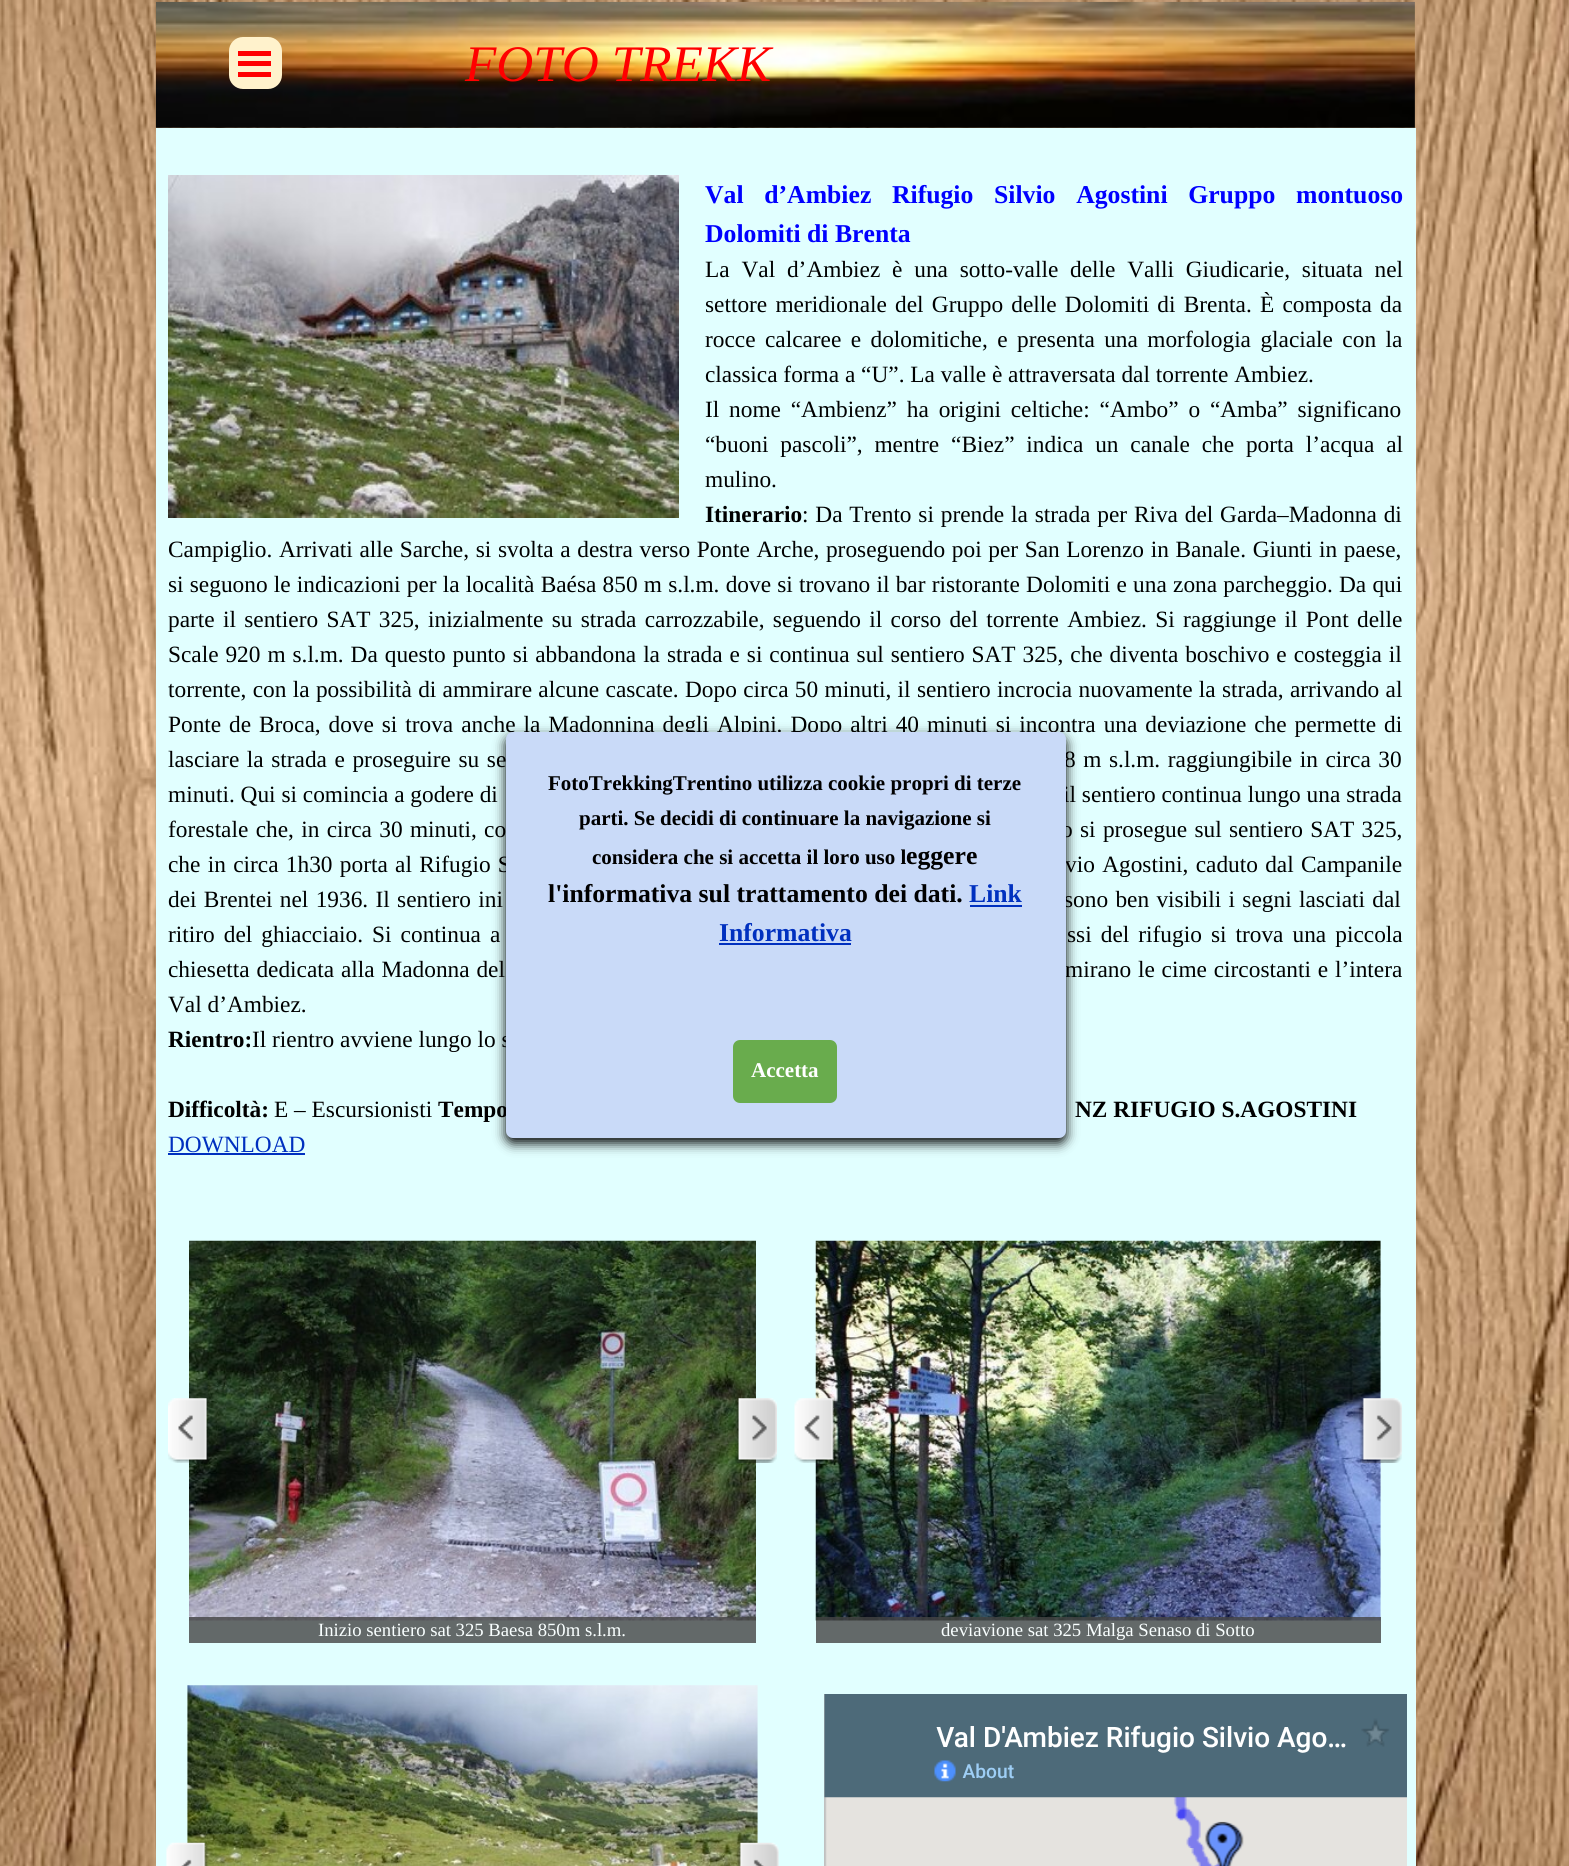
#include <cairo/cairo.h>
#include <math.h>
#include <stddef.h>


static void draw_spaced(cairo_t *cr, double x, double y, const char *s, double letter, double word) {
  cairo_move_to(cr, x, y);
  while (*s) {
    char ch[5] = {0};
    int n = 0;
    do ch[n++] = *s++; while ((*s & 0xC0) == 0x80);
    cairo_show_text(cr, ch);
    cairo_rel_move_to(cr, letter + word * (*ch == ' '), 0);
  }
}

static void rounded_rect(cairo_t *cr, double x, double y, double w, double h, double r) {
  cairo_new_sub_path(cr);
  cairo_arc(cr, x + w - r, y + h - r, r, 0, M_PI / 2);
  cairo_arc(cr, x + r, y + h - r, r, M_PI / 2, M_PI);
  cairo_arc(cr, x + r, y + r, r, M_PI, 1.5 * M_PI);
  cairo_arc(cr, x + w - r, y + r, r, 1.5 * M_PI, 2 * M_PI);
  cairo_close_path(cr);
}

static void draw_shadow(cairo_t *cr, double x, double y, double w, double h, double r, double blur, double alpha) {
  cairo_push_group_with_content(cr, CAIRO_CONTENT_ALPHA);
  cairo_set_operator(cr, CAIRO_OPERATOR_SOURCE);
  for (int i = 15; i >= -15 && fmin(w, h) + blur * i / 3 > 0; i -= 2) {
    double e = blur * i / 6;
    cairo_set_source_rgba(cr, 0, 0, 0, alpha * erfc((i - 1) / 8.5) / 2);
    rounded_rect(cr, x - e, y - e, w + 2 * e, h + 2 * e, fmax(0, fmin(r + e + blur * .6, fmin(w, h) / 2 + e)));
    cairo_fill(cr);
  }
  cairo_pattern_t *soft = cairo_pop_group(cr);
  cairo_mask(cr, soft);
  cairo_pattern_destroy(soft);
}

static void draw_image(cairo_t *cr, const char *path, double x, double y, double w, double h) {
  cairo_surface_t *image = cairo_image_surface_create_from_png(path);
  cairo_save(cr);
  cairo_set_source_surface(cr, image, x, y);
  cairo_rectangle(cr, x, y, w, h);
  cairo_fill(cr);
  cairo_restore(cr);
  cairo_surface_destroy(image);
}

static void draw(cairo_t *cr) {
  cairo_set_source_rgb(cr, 1, 1, 1);
  cairo_paint(cr);
  draw_image(cr, "images/1.png", 0, 0, 1569, 1866);
  draw_image(cr, "images/2.png", 155, 1, 1260, 127);
  cairo_set_source_rgb(cr, 1, 242 / 255.0, 204 / 255.0);
  rounded_rect(cr, 229, 37, 53, 52, 14);
  cairo_fill(cr);
  cairo_set_source_rgb(cr, 1, 0, 0);
  cairo_rectangle(cr, 238, 51, 33, 5);
  cairo_fill(cr);
  cairo_rectangle(cr, 238, 61, 33, 5);
  cairo_fill(cr);
  cairo_rectangle(cr, 238, 72, 33, 5);
  cairo_fill(cr);
  cairo_set_source_rgb(cr, 225 / 255.0, 1, 1);
  cairo_rectangle(cr, 156, 128, 1260, 1738);
  cairo_fill(cr);
  draw_image(cr, "images/3.png", 168, 175, 511, 343);
  cairo_set_source_rgb(cr, 0, 48 / 255.0, 191 / 255.0);
  cairo_rectangle(cr, 168, 1153, 137, 2);
  cairo_fill(cr);
  draw_image(cr, "images/6.png", 189, 1240, 567, 381);
  draw_image(cr, "images/4.png", 168, 1398, 42, 65);
  draw_image(cr, "images/5.png", 735, 1398, 42, 65);
  cairo_set_source_rgba(cr, 68 / 255.0, 68 / 255.0, 68 / 255.0, 0.8);
  cairo_rectangle(cr, 189, 1617, 567, 26);
  cairo_fill(cr);
  draw_image(cr, "images/9.png", 815, 1240, 566, 381);
  draw_image(cr, "images/7.png", 794, 1398, 43, 65);
  draw_image(cr, "images/8.png", 1359, 1398, 43, 65);
  cairo_rectangle(cr, 816, 1617, 565, 26);
  cairo_fill(cr);
  draw_image(cr, "images/10.png", 187, 1685, 571, 181);
  draw_image(cr, "images/11.png", 166, 1842, 43, 24);
  draw_image(cr, "images/12.png", 736, 1842, 43, 24);
  draw_image(cr, "images/13.png", 824, 1694, 583, 172);
  cairo_set_source_rgb(cr, 0, 0, 0);
  draw_shadow(cr, 506, 737, 560, 406, 7, 6, 1);
  cairo_select_font_face(cr, "Liberation Serif", CAIRO_FONT_SLANT_ITALIC, CAIRO_FONT_WEIGHT_NORMAL);
  cairo_set_font_size(cr, 51.25);
  cairo_set_source_rgb(cr, 1, 0, 0);
  cairo_move_to(cr, 465, 81);
  cairo_show_text(cr, "FOTO TREKK");
  cairo_select_font_face(cr, "Liberation Serif", CAIRO_FONT_SLANT_NORMAL, CAIRO_FONT_WEIGHT_BOLD);
  cairo_set_font_size(cr, 25.7);
  cairo_set_source_rgb(cr, 0, 0, 1);
  draw_spaced(cr, 705, 203, "Val d’Ambiez Rifugio Silvio Agostini Gruppo montuoso", 0, 14.25);
  cairo_move_to(cr, 705, 242);
  cairo_show_text(cr, "Dolomiti di Brenta");
  cairo_select_font_face(cr, "Liberation Serif", CAIRO_FONT_SLANT_NORMAL, CAIRO_FONT_WEIGHT_NORMAL);
  cairo_set_font_size(cr, 23.33);
  cairo_set_source_rgb(cr, 0, 0, 0);
  draw_spaced(cr, 705, 277, "La Val d’Ambiez è una sotto-valle delle Valli Giudicarie, situata nel", 0, 6);
  draw_spaced(cr, 705, 312, "settore meridionale del Gruppo delle Dolomiti di Brenta. È composta da", 0, 2.4);
  draw_spaced(cr, 705, 347, "rocce calcaree e dolomitiche, e presenta una morfologia glaciale con la", 0, 3.6);
  cairo_move_to(cr, 705, 382);
  cairo_show_text(cr, "classica forma a “U”. La valle è attraversata dal torrente Ambiez.");
  draw_spaced(cr, 705, 417, "Il nome “Ambienz” ha origini celtiche: “Ambo” o “Amba” significano", 0, 4);
  draw_spaced(cr, 705, 452, "“buoni pascoli”, mentre “Biez” indica un canale che porta l’acqua al", 0, 6);
  cairo_move_to(cr, 705, 487);
  cairo_show_text(cr, "mulino.");
  cairo_select_font_face(cr, "Liberation Serif", CAIRO_FONT_SLANT_NORMAL, CAIRO_FONT_WEIGHT_BOLD);
  cairo_move_to(cr, 705, 522);
  cairo_show_text(cr, "Itinerario");
  cairo_select_font_face(cr, "Liberation Serif", CAIRO_FONT_SLANT_NORMAL, CAIRO_FONT_WEIGHT_NORMAL);
  draw_spaced(cr, 802, 522, ": Da Trento si prende la strada per Riva del Garda–Madonna di", 0, 1);
  draw_spaced(cr, 168, 557, "Campiglio. Arrivati alle Sarche, si svolta a destra verso Ponte Arche, proseguendo poi per San Lorenzo in Banale. Giunti in paese,", 0, 0.8);
  draw_spaced(cr, 168, 592, "si seguono le indicazioni per la località Baésa 850 m s.l.m. dove si trovano il bar ristorante Dolomiti e una zona parcheggio. Da qui", 0, 0.4);
  draw_spaced(cr, 168, 627, "parte il sentiero SAT 325, inizialmente su strada carrozzabile, seguendo il corso del torrente Ambiez. Si raggiunge il Pont delle", 0, 2.5);
  draw_spaced(cr, 168, 662, "Scale 920 m s.l.m. Da questo punto si abbandona la strada e si continua sul sentiero SAT 325, che diventa boschivo e costeggia il", 0, 1.1);
  draw_spaced(cr, 168, 697, "torrente, con la possibilità di ammirare alcune cascate. Dopo circa 50 minuti, il sentiero incrocia nuovamente la strada, arrivando al", 0, 0.5);
  draw_spaced(cr, 168, 732, "Ponte de Broca, dove si trova anche la Madonnina degli Alpini. Dopo altri 40 minuti si incontra una deviazione che permette di", 0, 2.1);
  draw_spaced(cr, 168, 767, "lasciare la strada e proseguire su se", 0, 1.75);
  draw_spaced(cr, 1064, 767, "8 m s.l.m. raggiungibile in circa 30", 0, 1.75);
  cairo_move_to(cr, 168, 802);
  cairo_show_text(cr, "minuti. Qui si comincia a godere di");
  cairo_move_to(cr, 1063, 802);
  cairo_show_text(cr, "il sentiero continua lungo una strada");
  draw_spaced(cr, 168, 837, "forestale che, in circa 30 minuti, co", 0, 1.5);
  draw_spaced(cr, 1061, 837, "o si prosegue sul sentiero SAT 325,", 0, 1.5);
  draw_spaced(cr, 168, 872, "che in circa 1h30 porta al Rifugio S", 0, 1.5);
  draw_spaced(cr, 1065, 872, "vio Agostini, caduto dal Campanile", 0, 1.5);
  draw_spaced(cr, 168, 907, "dei Brentei nel 1936. Il sentiero ini", 0, 1.5);
  draw_spaced(cr, 1064, 907, "sono ben visibili i segni lasciati dal", 0, 1.5);
  draw_spaced(cr, 168, 942, "ritiro del ghiacciaio. Si continua a", 0, 3.25);
  draw_spaced(cr, 1067, 942, "ssi del rifugio si trova una piccola", 0, 3.25);
  draw_spaced(cr, 168, 977, "chiesetta dedicata alla Madonna del", 0, 1);
  draw_spaced(cr, 1065, 977, "mirano le cime circostanti e l’intera", 0, 1);
  cairo_move_to(cr, 168, 1012);
  cairo_show_text(cr, "Val d’Ambiez.");
  cairo_select_font_face(cr, "Liberation Serif", CAIRO_FONT_SLANT_NORMAL, CAIRO_FONT_WEIGHT_BOLD);
  cairo_move_to(cr, 168, 1047);
  cairo_show_text(cr, "Rientro:");
  cairo_select_font_face(cr, "Liberation Serif", CAIRO_FONT_SLANT_NORMAL, CAIRO_FONT_WEIGHT_NORMAL);
  cairo_move_to(cr, 252, 1047);
  cairo_show_text(cr, "Il rientro avviene lungo lo s");
  cairo_select_font_face(cr, "Liberation Serif", CAIRO_FONT_SLANT_NORMAL, CAIRO_FONT_WEIGHT_BOLD);
  cairo_move_to(cr, 168, 1117);
  cairo_show_text(cr, "Difficoltà:");
  cairo_select_font_face(cr, "Liberation Serif", CAIRO_FONT_SLANT_NORMAL, CAIRO_FONT_WEIGHT_NORMAL);
  cairo_move_to(cr, 274, 1117);
  cairo_show_text(cr, "E – Escursionisti");
  cairo_select_font_face(cr, "Liberation Serif", CAIRO_FONT_SLANT_NORMAL, CAIRO_FONT_WEIGHT_BOLD);
  cairo_move_to(cr, 438, 1117);
  cairo_show_text(cr, "Tempo");
  cairo_move_to(cr, 1075, 1117);
  cairo_show_text(cr, "NZ RIFUGIO S.AGOSTINI");
  cairo_select_font_face(cr, "Liberation Serif", CAIRO_FONT_SLANT_NORMAL, CAIRO_FONT_WEIGHT_NORMAL);
  cairo_set_source_rgb(cr, 0, 48 / 255.0, 191 / 255.0);
  cairo_move_to(cr, 168, 1152);
  cairo_show_text(cr, "DOWNLOAD");
  cairo_set_font_size(cr, 18.7);
  cairo_set_source_rgb(cr, 249 / 255.0, 1, 1);
  cairo_move_to(cr, 318, 1636);
  cairo_show_text(cr, "Inizio sentiero sat 325 Baesa 850m s.l.m.");
  cairo_move_to(cr, 941, 1636);
  cairo_show_text(cr, "deviavione sat 325 Malga Senaso di Sotto");
  cairo_set_source_rgb(cr, 201 / 255.0, 218 / 255.0, 248 / 255.0);
  rounded_rect(cr, 506, 732, 560, 406, 7);
  cairo_fill(cr);
  cairo_select_font_face(cr, "Liberation Serif", CAIRO_FONT_SLANT_NORMAL, CAIRO_FONT_WEIGHT_BOLD);
  cairo_set_font_size(cr, 21);
  cairo_set_source_rgb(cr, 0, 0, 0);
  cairo_move_to(cr, 548, 790);
  cairo_show_text(cr, "FotoTrekkingTrentino utilizza cookie propri di terze");
  cairo_move_to(cr, 579, 825);
  cairo_show_text(cr, "parti. Se decidi di continuare la navigazione si");
  cairo_move_to(cr, 592, 864);
  cairo_show_text(cr, "considera che si accetta il loro uso l");
  cairo_set_font_size(cr, 25.7);
  cairo_move_to(cr, 906, 864);
  cairo_show_text(cr, "eggere");
  cairo_move_to(cr, 548, 902);
  cairo_show_text(cr, "l'informativa sul trattamento dei dati.");
  cairo_set_source_rgb(cr, 0, 48 / 255.0, 191 / 255.0);
  cairo_move_to(cr, 969, 902);
  cairo_show_text(cr, "Link");
  cairo_rectangle(cr, 970, 905, 52, 2);
  cairo_fill(cr);
  cairo_move_to(cr, 719, 941);
  cairo_show_text(cr, "Informativa");
  cairo_rectangle(cr, 719, 943, 132, 2);
  cairo_fill(cr);
  cairo_set_source_rgb(cr, 105 / 255.0, 172 / 255.0, 77 / 255.0);
  rounded_rect(cr, 733, 1040, 104, 63, 7);
  cairo_fill(cr);
  cairo_set_font_size(cr, 21);
  cairo_set_source_rgb(cr, 1, 1, 1);
  cairo_move_to(cr, 751, 1077);
  cairo_show_text(cr, "Accetta");
}

int main(void) {
  cairo_surface_t *surface = cairo_image_surface_create(CAIRO_FORMAT_RGB24, 1569, 1866);
  cairo_t *cr = cairo_create(surface);
  cairo_font_options_t *options = cairo_font_options_create();
  cairo_font_options_set_hint_metrics(options, CAIRO_HINT_METRICS_OFF);
  cairo_font_options_set_hint_style(options, CAIRO_HINT_STYLE_NONE);
  cairo_set_font_options(cr, options);
  cairo_set_miter_limit(cr, 4);
  draw(cr);
  cairo_surface_write_to_png(surface, "out.png");
  cairo_font_options_destroy(options);
  cairo_destroy(cr);
  cairo_surface_destroy(surface);
  return 0;
}
